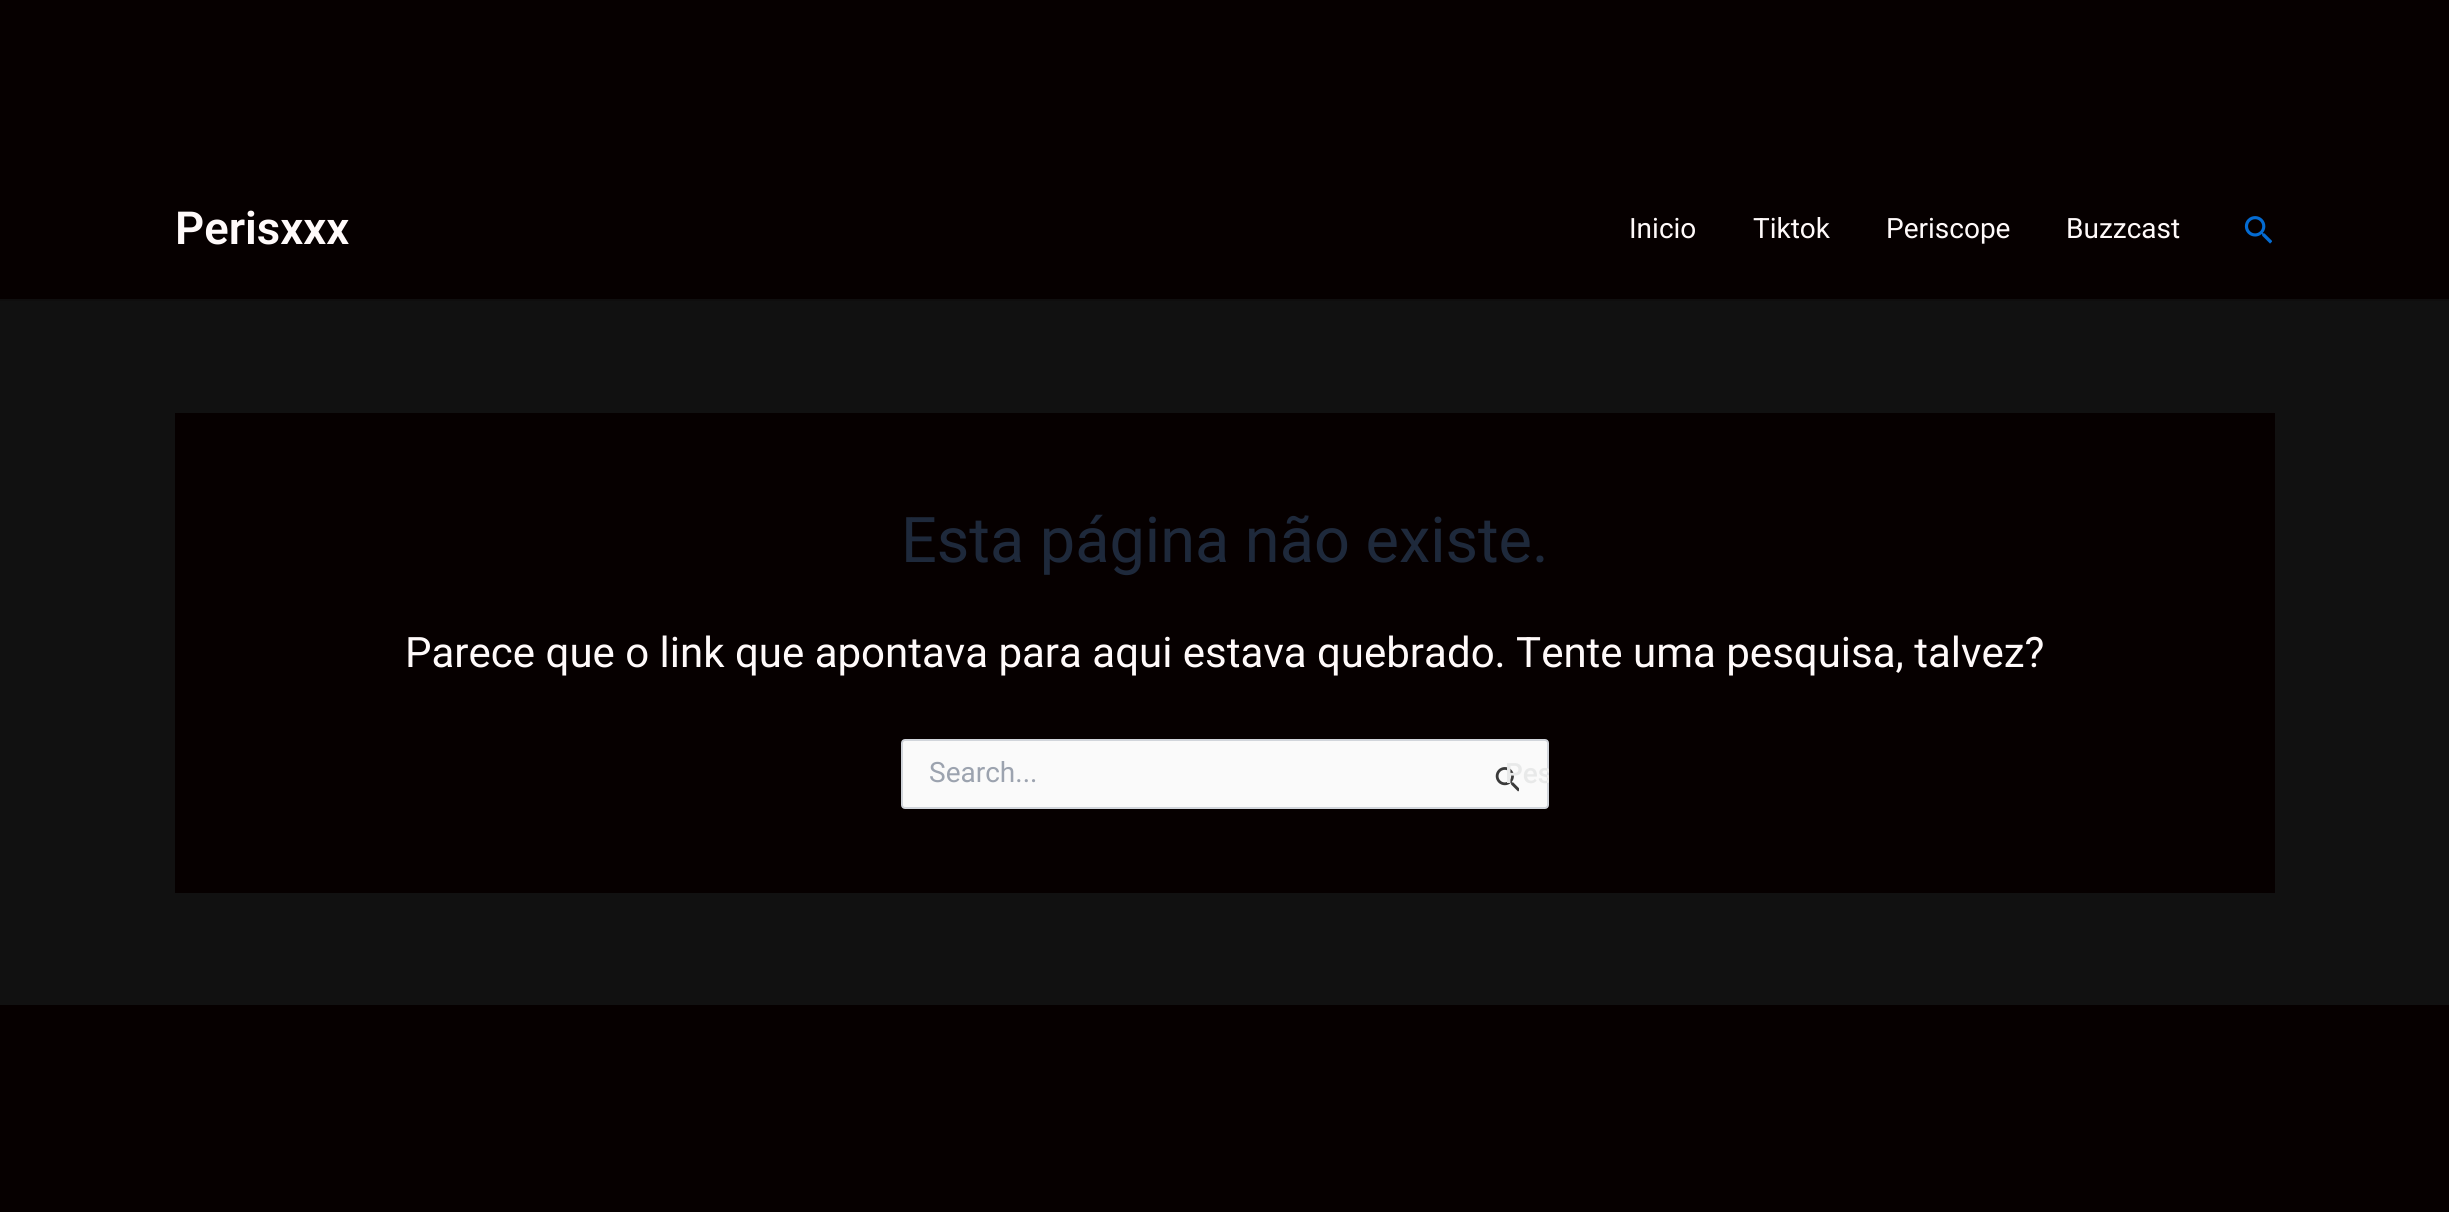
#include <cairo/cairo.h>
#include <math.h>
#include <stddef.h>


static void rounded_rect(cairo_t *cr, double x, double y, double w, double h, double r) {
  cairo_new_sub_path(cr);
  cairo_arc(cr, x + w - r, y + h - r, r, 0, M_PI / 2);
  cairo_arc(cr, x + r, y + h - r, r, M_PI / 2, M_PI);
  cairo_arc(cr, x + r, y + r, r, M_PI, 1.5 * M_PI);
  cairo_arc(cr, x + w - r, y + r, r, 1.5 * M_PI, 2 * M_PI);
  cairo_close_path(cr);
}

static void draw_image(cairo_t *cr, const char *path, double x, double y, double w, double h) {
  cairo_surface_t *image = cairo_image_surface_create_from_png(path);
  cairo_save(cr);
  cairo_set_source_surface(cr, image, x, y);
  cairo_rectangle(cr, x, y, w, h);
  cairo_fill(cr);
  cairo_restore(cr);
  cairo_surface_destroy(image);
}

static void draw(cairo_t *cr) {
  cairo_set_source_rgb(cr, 17 / 255.0, 17 / 255.0, 17 / 255.0);
  cairo_paint(cr);
  cairo_set_source_rgb(cr, 6 / 255.0, 0, 0);
  cairo_rectangle(cr, 0, 0, 2449, 299);
  cairo_fill(cr);
  cairo_set_source_rgb(cr, 15 / 255.0, 14 / 255.0, 14 / 255.0);
  cairo_rectangle(cr, 0, 299, 2449, 2);
  cairo_fill(cr);
  draw_image(cr, "images/1.png", 2244, 216, 28, 28);
  cairo_set_source_rgb(cr, 6 / 255.0, 0, 0);
  cairo_rectangle(cr, 175, 413, 2100, 480);
  cairo_fill(cr);
  cairo_set_source_rgb(cr, 250 / 255.0, 250 / 255.0, 250 / 255.0);
  rounded_rect(cr, 902, 740, 646, 68, 3);
  cairo_fill_preserve(cr);
  cairo_set_source_rgb(cr, 209 / 255.0, 213 / 255.0, 219 / 255.0);
  cairo_stroke(cr);
  draw_image(cr, "images/2.png", 1495, 767, 24, 25);
  cairo_set_source_rgb(cr, 6 / 255.0, 0, 0);
  cairo_rectangle(cr, 0, 1005, 2449, 175);
  cairo_fill(cr);
  cairo_rectangle(cr, 0, 1180, 2449, 32);
  cairo_fill(cr);
  cairo_select_font_face(cr, "Roboto SemiBold", CAIRO_FONT_SLANT_NORMAL, CAIRO_FONT_WEIGHT_NORMAL);
  cairo_set_font_size(cr, 45.5);
  cairo_set_source_rgb(cr, 1, 250 / 255.0, 250 / 255.0);
  cairo_move_to(cr, 175, 244);
  cairo_show_text(cr, "Perisxxx");
  cairo_select_font_face(cr, "Roboto", CAIRO_FONT_SLANT_NORMAL, CAIRO_FONT_WEIGHT_NORMAL);
  cairo_set_font_size(cr, 28);
  cairo_move_to(cr, 1629, 238);
  cairo_show_text(cr, "Inicio");
  cairo_move_to(cr, 1753, 238);
  cairo_show_text(cr, "Tiktok");
  cairo_move_to(cr, 1886, 238);
  cairo_show_text(cr, "Periscope");
  cairo_move_to(cr, 2066, 238);
  cairo_show_text(cr, "Buzzcast");
  cairo_set_font_size(cr, 63);
  cairo_set_source_rgb(cr, 30 / 255.0, 41 / 255.0, 59 / 255.0);
  cairo_move_to(cr, 901, 562);
  cairo_show_text(cr, "Esta página não existe.");
  cairo_set_font_size(cr, 42);
  cairo_set_source_rgb(cr, 1, 250 / 255.0, 250 / 255.0);
  cairo_move_to(cr, 405, 667);
  cairo_show_text(cr, "Parece que o link que apontava para aqui estava quebrado. Tente uma pesquisa, talvez?");
  cairo_set_font_size(cr, 28);
  cairo_set_source_rgb(cr, 156 / 255.0, 163 / 255.0, 175 / 255.0);
  cairo_move_to(cr, 929, 782);
  cairo_show_text(cr, "Search...");
  cairo_save(cr);
  rounded_rect(cr, 1470, 739, 79, 73, 4);
  cairo_clip(cr);
  cairo_select_font_face(cr, "Roboto Medium", CAIRO_FONT_SLANT_NORMAL, CAIRO_FONT_WEIGHT_NORMAL);
  cairo_set_source_rgb(cr, 232 / 255.0, 233 / 255.0, 233 / 255.0);
  cairo_move_to(cr, 1505, 783);
  cairo_show_text(cr, "Pes");
  cairo_restore(cr);
}

int main(void) {
  cairo_surface_t *surface = cairo_image_surface_create(CAIRO_FORMAT_RGB24, 2449, 1212);
  cairo_t *cr = cairo_create(surface);
  cairo_font_options_t *options = cairo_font_options_create();
  cairo_font_options_set_hint_metrics(options, CAIRO_HINT_METRICS_OFF);
  cairo_font_options_set_hint_style(options, CAIRO_HINT_STYLE_NONE);
  cairo_set_font_options(cr, options);
  cairo_set_miter_limit(cr, 4);
  draw(cr);
  cairo_surface_write_to_png(surface, "out.png");
  cairo_font_options_destroy(options);
  cairo_destroy(cr);
  cairo_surface_destroy(surface);
  return 0;
}
